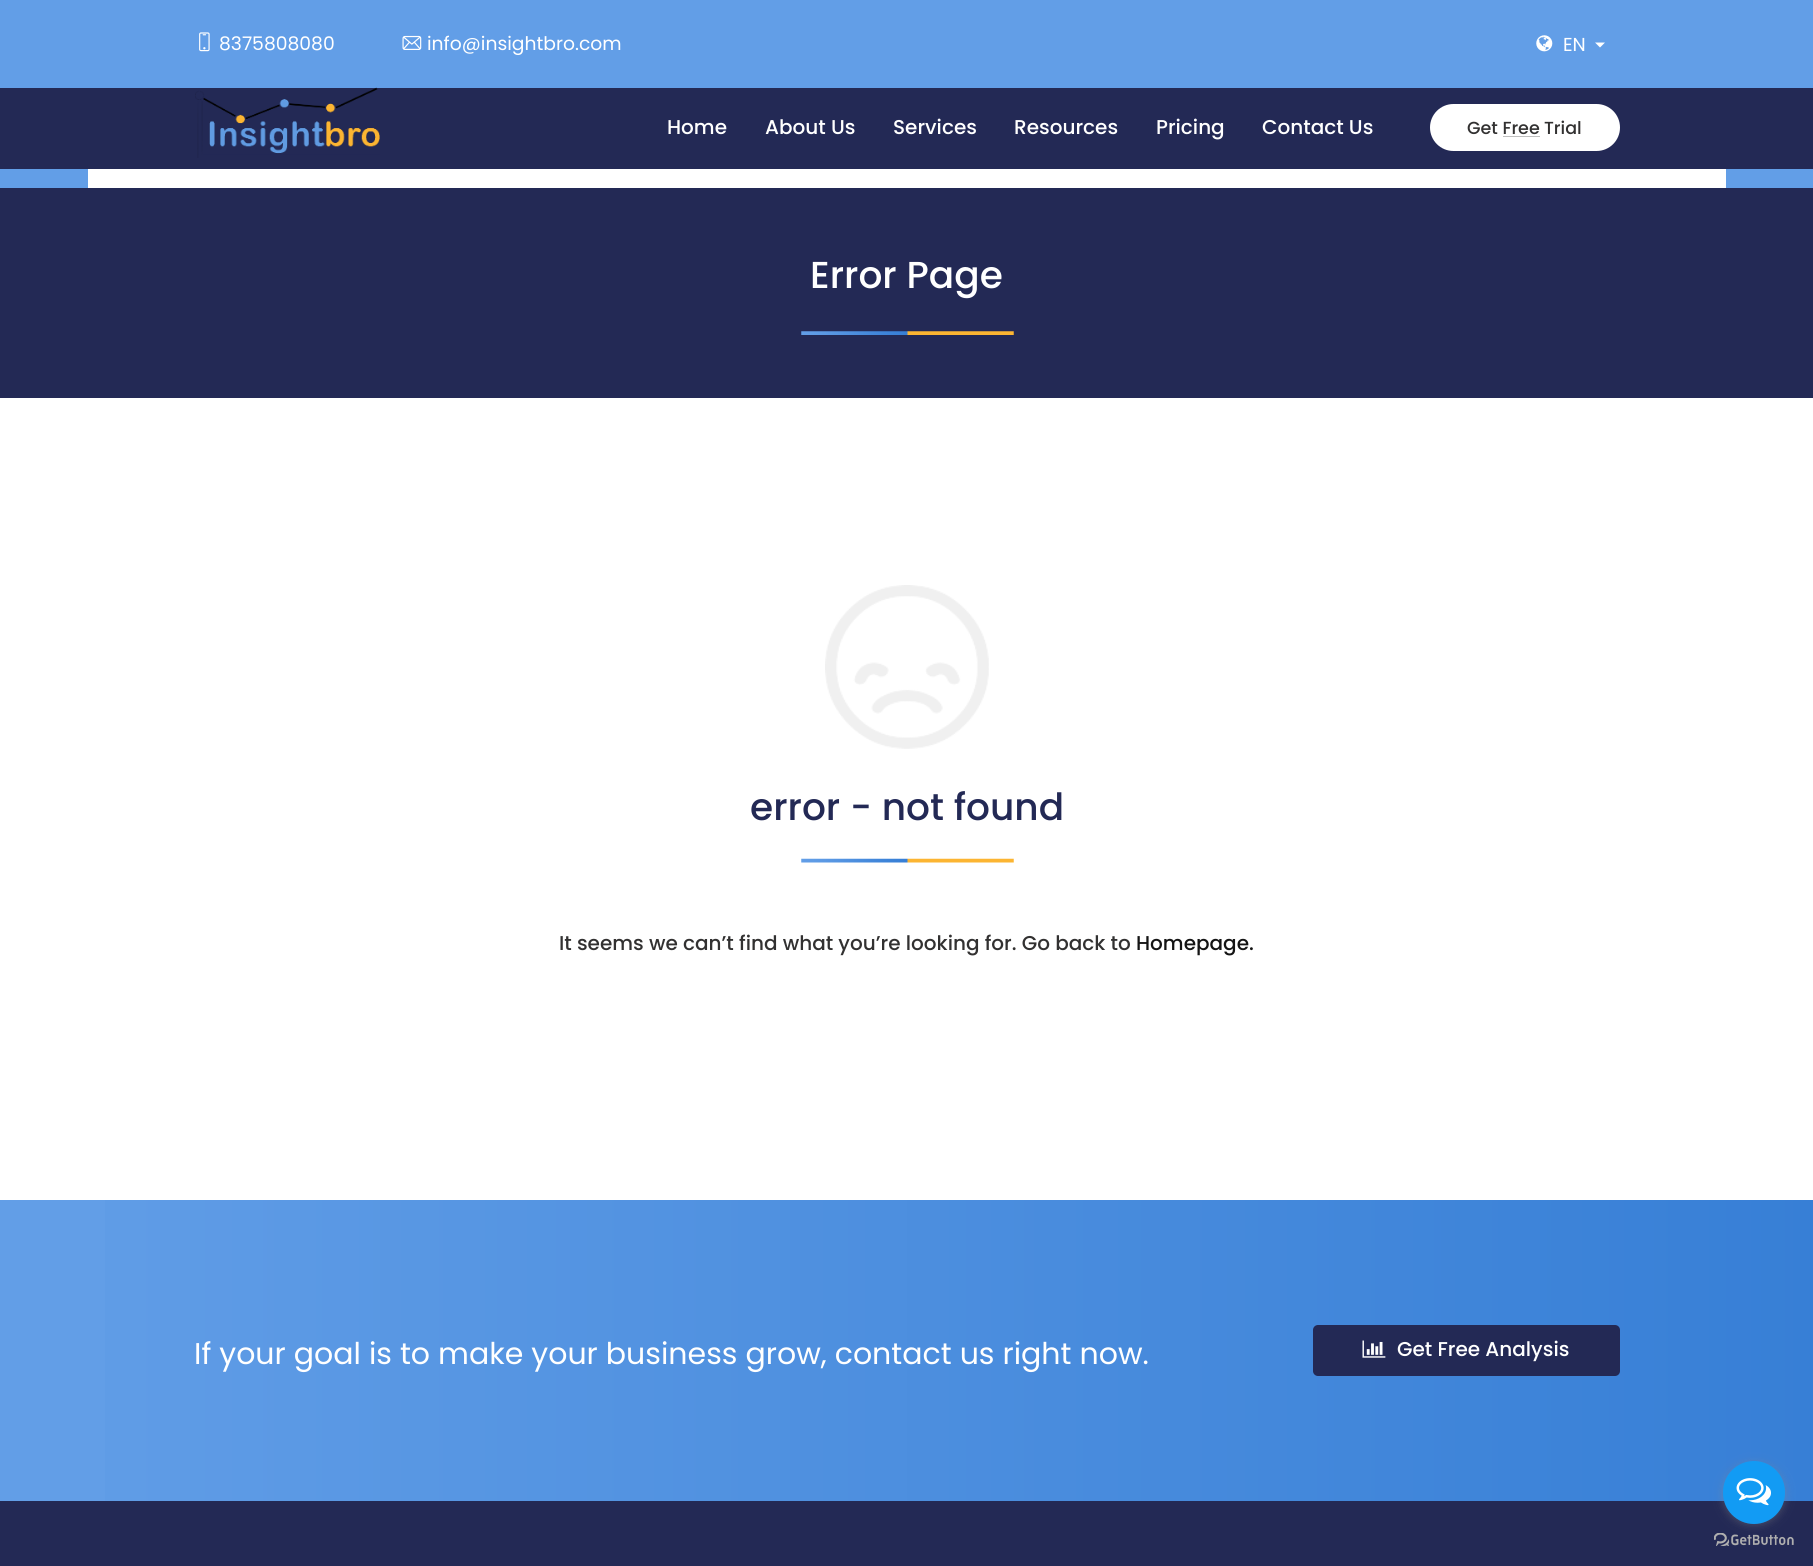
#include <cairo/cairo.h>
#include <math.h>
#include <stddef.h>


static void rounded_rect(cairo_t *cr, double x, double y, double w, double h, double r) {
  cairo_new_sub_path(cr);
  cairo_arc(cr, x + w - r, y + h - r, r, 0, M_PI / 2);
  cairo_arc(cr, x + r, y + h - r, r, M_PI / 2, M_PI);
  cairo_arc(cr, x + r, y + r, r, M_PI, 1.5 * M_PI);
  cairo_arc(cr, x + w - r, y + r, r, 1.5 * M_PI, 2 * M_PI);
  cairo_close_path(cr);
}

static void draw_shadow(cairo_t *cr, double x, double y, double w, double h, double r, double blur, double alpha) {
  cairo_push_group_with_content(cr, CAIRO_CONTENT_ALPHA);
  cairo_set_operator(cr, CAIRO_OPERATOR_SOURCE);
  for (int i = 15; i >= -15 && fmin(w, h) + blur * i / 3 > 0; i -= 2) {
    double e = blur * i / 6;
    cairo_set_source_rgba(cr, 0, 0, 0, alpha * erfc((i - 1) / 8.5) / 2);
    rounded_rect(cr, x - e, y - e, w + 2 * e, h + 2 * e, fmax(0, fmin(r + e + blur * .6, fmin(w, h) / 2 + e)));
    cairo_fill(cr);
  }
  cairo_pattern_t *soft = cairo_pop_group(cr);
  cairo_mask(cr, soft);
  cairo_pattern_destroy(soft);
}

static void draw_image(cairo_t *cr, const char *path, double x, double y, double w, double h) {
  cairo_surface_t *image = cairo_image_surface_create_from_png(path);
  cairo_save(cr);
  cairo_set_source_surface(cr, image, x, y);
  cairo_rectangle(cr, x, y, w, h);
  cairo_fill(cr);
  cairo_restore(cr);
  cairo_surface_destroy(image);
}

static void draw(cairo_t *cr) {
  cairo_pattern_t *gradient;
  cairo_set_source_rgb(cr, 98 / 255.0, 158 / 255.0, 231 / 255.0);
  cairo_paint(cr);
  draw_image(cr, "images/1.png", 199, 32, 11, 20);
  draw_image(cr, "images/2.png", 402, 35, 20, 15);
  draw_image(cr, "images/3.png", 1536, 35, 17, 17);
  cairo_set_source_rgb(cr, 1, 1, 1);
  cairo_new_path(cr);
  cairo_move_to(cr, 1595, 42.5);
  cairo_line_to(cr, 1605, 42.5);
  cairo_line_to(cr, 1600, 47.5);
  cairo_close_path(cr);
  cairo_fill(cr);
  cairo_set_source_rgb(cr, 35 / 255.0, 41 / 255.0, 85 / 255.0);
  cairo_rectangle(cr, 0, 88, 1813, 81);
  cairo_fill(cr);
  draw_image(cr, "images/4.png", 195, 87, 185, 71);
  cairo_set_source_rgb(cr, 1, 1, 1);
  cairo_new_path(cr);
  cairo_move_to(cr, 1453.5, 104);
  cairo_line_to(cr, 1503, 104);
  cairo_line_to(cr, 1503, 151);
  cairo_line_to(cr, 1453.5, 151);
  cairo_curve_to(cr, 1440.5, 151, 1430, 140.5, 1430, 127.5);
  cairo_curve_to(cr, 1430, 114.5, 1440.5, 104, 1453.5, 104);
  cairo_close_path(cr);
  cairo_fill(cr);
  cairo_rectangle(cr, 1503, 104, 37, 47);
  cairo_fill(cr);
  cairo_new_path(cr);
  cairo_move_to(cr, 1540, 104);
  cairo_line_to(cr, 1596.5, 104);
  cairo_curve_to(cr, 1609.5, 104, 1620, 114.5, 1620, 127.5);
  cairo_curve_to(cr, 1620, 140.5, 1609.5, 151, 1596.5, 151);
  cairo_line_to(cr, 1540, 151);
  cairo_close_path(cr);
  cairo_fill(cr);
  cairo_set_source_rgb(cr, 191 / 255.0, 191 / 255.0, 191 / 255.0);
  cairo_rectangle(cr, 1503, 136, 37, 1);
  cairo_fill(cr);
  cairo_set_source_rgb(cr, 1, 1, 1);
  cairo_rectangle(cr, 88, 169, 1638, 19);
  cairo_fill(cr);
  cairo_rectangle(cr, 0, 398, 1813, 802);
  cairo_fill(cr);
  cairo_set_source_rgb(cr, 35 / 255.0, 41 / 255.0, 85 / 255.0);
  cairo_rectangle(cr, 0, 188, 1813, 210);
  cairo_fill(cr);
  draw_image(cr, "images/5.png", 801, 331, 213, 4);
  draw_image(cr, "images/6.png", 825, 585, 164, 164);
  draw_image(cr, "images/7.png", 801, 858, 213, 5);
  gradient = cairo_pattern_create_linear(0, 1351, 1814, 1351);
  cairo_pattern_add_color_stop_rgba(gradient, 0, 98 / 255.0, 158 / 255.0, 231 / 255.0, 1);
  cairo_pattern_add_color_stop_rgba(gradient, 1, 55 / 255.0, 127 / 255.0, 214 / 255.0, 1);
  cairo_set_source(cr, gradient);
  cairo_pattern_destroy(gradient);
  cairo_rectangle(cr, 105, 1200, 1708, 301);
  cairo_fill(cr);
  cairo_set_source_rgb(cr, 35 / 255.0, 41 / 255.0, 85 / 255.0);
  rounded_rect(cr, 1313, 1325, 307, 51, 5);
  cairo_fill(cr);
  draw_image(cr, "images/8.png", 1362, 1340, 24, 18);
  cairo_rectangle(cr, 0, 1501, 1813, 65);
  cairo_fill(cr);
  draw_image(cr, "images/10.png", 1714, 1533, 80, 13);
  cairo_set_source_rgb(cr, 136 / 255.0, 136 / 255.0, 136 / 255.0);
  draw_shadow(cr, 1723, 1463, 62, 62, 31, 4.5, 0.4);
  cairo_set_source_rgb(cr, 18 / 255.0, 155 / 255.0, 244 / 255.0);
  rounded_rect(cr, 1723, 1461, 62, 63, 31);
  cairo_fill(cr);
  draw_image(cr, "images/9.png", 1736, 1478, 35, 28);
  cairo_select_font_face(cr, "Poppins", CAIRO_FONT_SLANT_NORMAL, CAIRO_FONT_WEIGHT_NORMAL);
  cairo_set_font_size(cr, 18.75);
  cairo_set_source_rgb(cr, 1, 1, 1);
  cairo_move_to(cr, 219, 50);
  cairo_show_text(cr, "8375808080");
  cairo_move_to(cr, 427, 50);
  cairo_show_text(cr, "info@insightbro.com");
  cairo_move_to(cr, 1563, 51);
  cairo_show_text(cr, "EN");
  cairo_select_font_face(cr, "Poppins Medium", CAIRO_FONT_SLANT_NORMAL, CAIRO_FONT_WEIGHT_NORMAL);
  cairo_set_font_size(cr, 20);
  cairo_move_to(cr, 667, 134);
  cairo_show_text(cr, "Home");
  cairo_move_to(cr, 765, 134);
  cairo_show_text(cr, "About Us");
  cairo_move_to(cr, 893, 134);
  cairo_show_text(cr, "Services");
  cairo_move_to(cr, 1014, 134);
  cairo_show_text(cr, "Resources");
  cairo_move_to(cr, 1156, 134);
  cairo_show_text(cr, "Pricing");
  cairo_move_to(cr, 1262, 134);
  cairo_show_text(cr, "Contact Us");
  cairo_set_font_size(cr, 17.5);
  cairo_set_source_rgb(cr, 50 / 255.0, 49 / 255.0, 49 / 255.0);
  cairo_move_to(cr, 1467, 134);
  cairo_show_text(cr, "Get Free");
  cairo_move_to(cr, 1544, 134);
  cairo_show_text(cr, "Trial");
  cairo_set_font_size(cr, 37.5);
  cairo_set_source_rgb(cr, 1, 1, 1);
  cairo_move_to(cr, 810, 288);
  cairo_show_text(cr, "Error Page");
  cairo_set_source_rgb(cr, 35 / 255.0, 41 / 255.0, 85 / 255.0);
  cairo_move_to(cr, 750, 820);
  cairo_show_text(cr, "error - not found");
  cairo_set_font_size(cr, 20);
  cairo_set_source_rgb(cr, 50 / 255.0, 49 / 255.0, 49 / 255.0);
  cairo_move_to(cr, 559, 950);
  cairo_show_text(cr, "It seems we can’t find what you’re looking for. Go back to");
  cairo_set_source_rgb(cr, 20 / 255.0, 20 / 255.0, 20 / 255.0);
  cairo_move_to(cr, 1136, 950);
  cairo_show_text(cr, "Homepage.");
  cairo_select_font_face(cr, "Poppins", CAIRO_FONT_SLANT_NORMAL, CAIRO_FONT_WEIGHT_NORMAL);
  cairo_set_font_size(cr, 30);
  cairo_set_source_rgb(cr, 1, 1, 1);
  cairo_move_to(cr, 194, 1364);
  cairo_show_text(cr, "If your goal is to make your business grow, contact us right now.");
  cairo_select_font_face(cr, "Poppins Medium", CAIRO_FONT_SLANT_NORMAL, CAIRO_FONT_WEIGHT_NORMAL);
  cairo_set_font_size(cr, 20);
  cairo_move_to(cr, 1397, 1356);
  cairo_show_text(cr, "Get Free Analysis");
}

int main(void) {
  cairo_surface_t *surface = cairo_image_surface_create(CAIRO_FORMAT_RGB24, 1813, 1566);
  cairo_t *cr = cairo_create(surface);
  cairo_font_options_t *options = cairo_font_options_create();
  cairo_font_options_set_hint_metrics(options, CAIRO_HINT_METRICS_OFF);
  cairo_font_options_set_hint_style(options, CAIRO_HINT_STYLE_NONE);
  cairo_set_font_options(cr, options);
  cairo_set_miter_limit(cr, 4);
  draw(cr);
  cairo_surface_write_to_png(surface, "out.png");
  cairo_font_options_destroy(options);
  cairo_destroy(cr);
  cairo_surface_destroy(surface);
  return 0;
}
